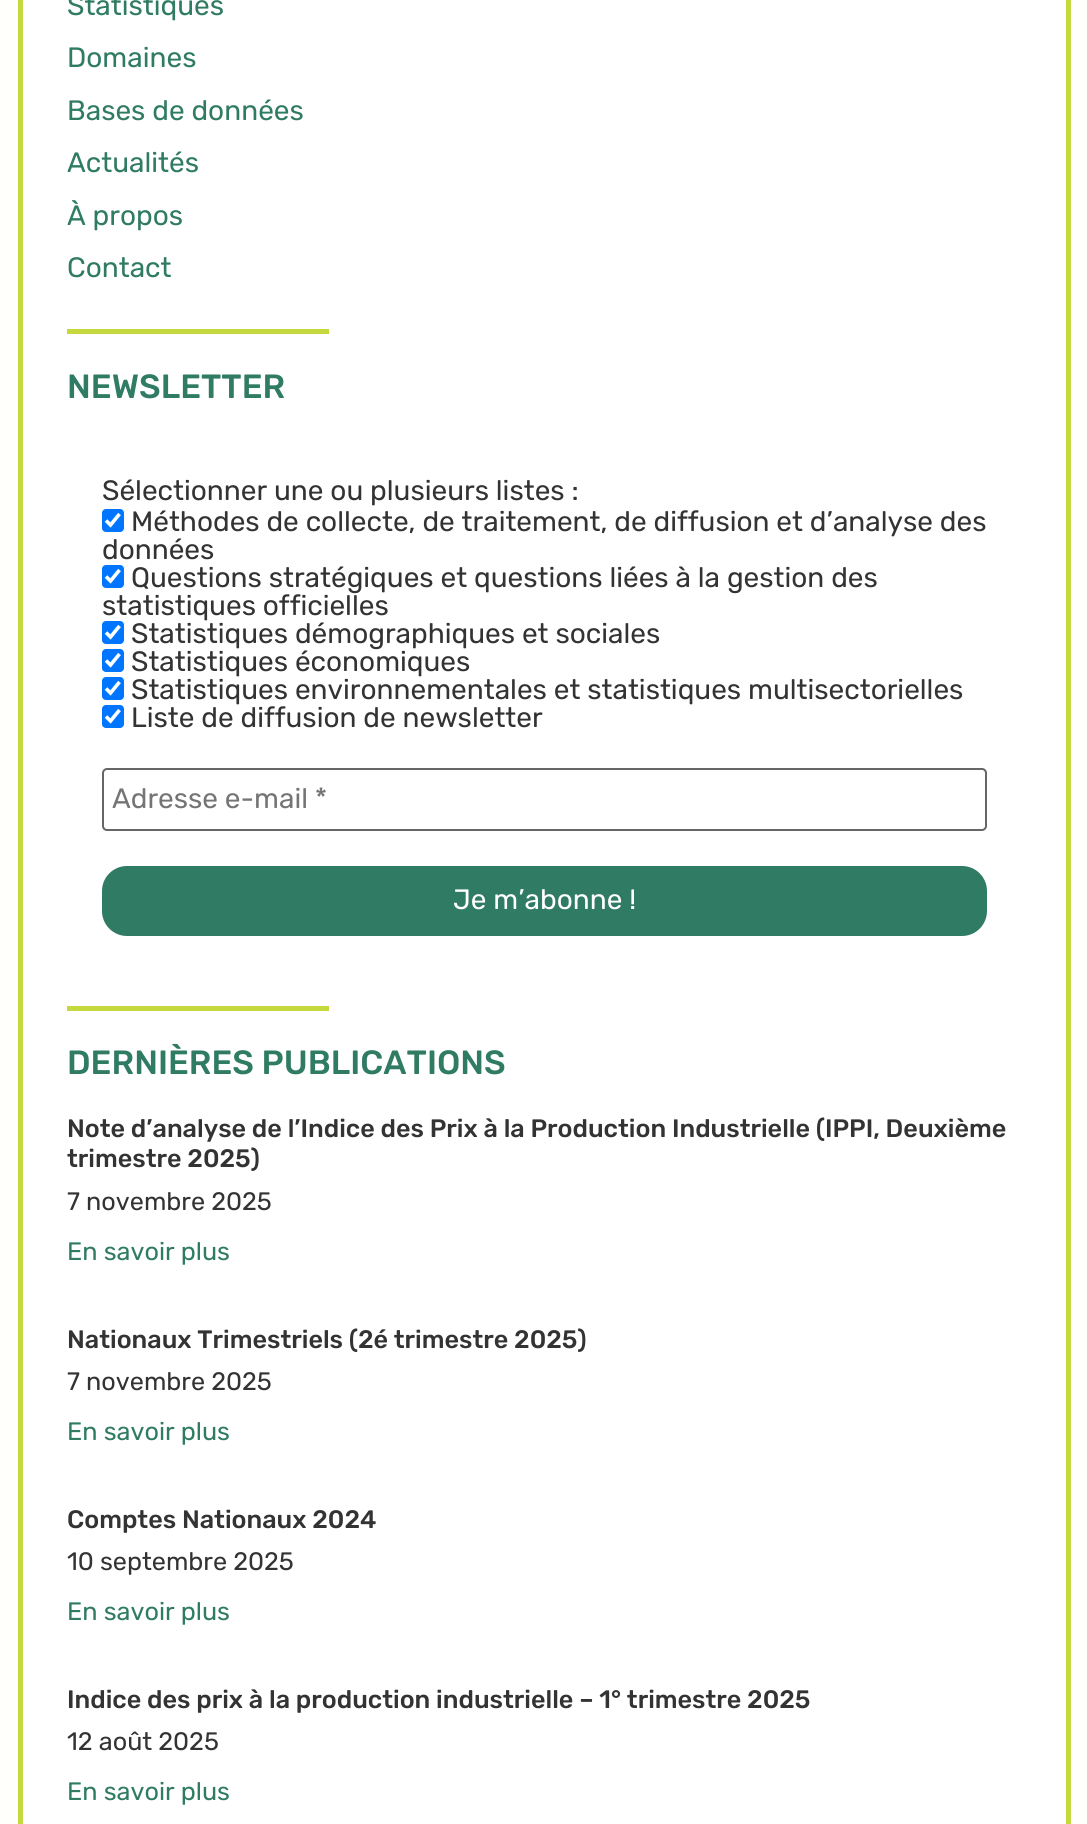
#include <cairo/cairo.h>
#include <math.h>
#include <stddef.h>


static void rounded_rect(cairo_t *cr, double x, double y, double w, double h, double r) {
  cairo_new_sub_path(cr);
  cairo_arc(cr, x + w - r, y + h - r, r, 0, M_PI / 2);
  cairo_arc(cr, x + r, y + h - r, r, M_PI / 2, M_PI);
  cairo_arc(cr, x + r, y + r, r, M_PI, 1.5 * M_PI);
  cairo_arc(cr, x + w - r, y + r, r, 1.5 * M_PI, 2 * M_PI);
  cairo_close_path(cr);
}

static void draw(cairo_t *cr) {
  cairo_set_source_rgb(cr, 1, 1, 252 / 255.0);
  cairo_paint(cr);
  cairo_set_source_rgb(cr, 1, 1, 1);
  cairo_rectangle(cr, 20.5, -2.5, 1048, 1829);
  cairo_fill_preserve(cr);
  cairo_set_source_rgb(cr, 197 / 255.0, 217 / 255.0, 62 / 255.0);
  cairo_set_line_width(cr, 5);
  cairo_stroke(cr);
  cairo_rectangle(cr, 67, 329, 262, 5);
  cairo_fill(cr);
  cairo_set_source_rgb(cr, 0, 117 / 255.0, 1);
  rounded_rect(cr, 102, 509, 22, 23, 4);
  cairo_fill(cr);
  cairo_new_path(cr);
  cairo_move_to(cr, 106, 520.5);
  cairo_line_to(cr, 110.5, 525);
  cairo_line_to(cr, 119.5, 514);
  cairo_set_source_rgb(cr, 1, 1, 1);
  cairo_set_line_width(cr, 3.6);
  cairo_stroke(cr);
  cairo_set_source_rgb(cr, 0, 117 / 255.0, 1);
  rounded_rect(cr, 102, 565, 22, 23, 4);
  cairo_fill(cr);
  cairo_new_path(cr);
  cairo_move_to(cr, 106, 576.5);
  cairo_line_to(cr, 110.5, 581);
  cairo_line_to(cr, 119.5, 570);
  cairo_set_source_rgb(cr, 1, 1, 1);
  cairo_stroke(cr);
  cairo_set_source_rgb(cr, 0, 117 / 255.0, 1);
  rounded_rect(cr, 102, 621, 22, 23, 4);
  cairo_fill(cr);
  cairo_new_path(cr);
  cairo_move_to(cr, 106, 632.5);
  cairo_line_to(cr, 110.5, 637);
  cairo_line_to(cr, 119.5, 626);
  cairo_set_source_rgb(cr, 1, 1, 1);
  cairo_stroke(cr);
  cairo_set_source_rgb(cr, 0, 117 / 255.0, 1);
  rounded_rect(cr, 102, 649, 22, 23, 4);
  cairo_fill(cr);
  cairo_new_path(cr);
  cairo_move_to(cr, 106, 660.5);
  cairo_line_to(cr, 110.5, 665);
  cairo_line_to(cr, 119.5, 654);
  cairo_set_source_rgb(cr, 1, 1, 1);
  cairo_stroke(cr);
  cairo_set_source_rgb(cr, 0, 117 / 255.0, 1);
  rounded_rect(cr, 102, 677, 22, 23, 4);
  cairo_fill(cr);
  cairo_new_path(cr);
  cairo_move_to(cr, 106, 688.5);
  cairo_line_to(cr, 110.5, 693);
  cairo_line_to(cr, 119.5, 682);
  cairo_set_source_rgb(cr, 1, 1, 1);
  cairo_stroke(cr);
  cairo_set_source_rgb(cr, 0, 117 / 255.0, 1);
  rounded_rect(cr, 102, 705, 22, 23, 4);
  cairo_fill(cr);
  cairo_new_path(cr);
  cairo_move_to(cr, 106, 716.5);
  cairo_line_to(cr, 110.5, 721);
  cairo_line_to(cr, 119.5, 710);
  cairo_set_source_rgb(cr, 1, 1, 1);
  cairo_stroke(cr);
  rounded_rect(cr, 103, 769, 883, 61, 4);
  cairo_set_source_rgb(cr, 102 / 255.0, 102 / 255.0, 102 / 255.0);
  cairo_set_line_width(cr, 2);
  cairo_stroke(cr);
  cairo_set_source_rgb(cr, 48 / 255.0, 123 / 255.0, 99 / 255.0);
  rounded_rect(cr, 102, 866, 885, 70, 25);
  cairo_fill(cr);
  cairo_set_source_rgb(cr, 197 / 255.0, 217 / 255.0, 62 / 255.0);
  cairo_rectangle(cr, 67, 1006, 262, 5);
  cairo_fill(cr);
  cairo_select_font_face(cr, "Rubik", CAIRO_FONT_SLANT_NORMAL, CAIRO_FONT_WEIGHT_NORMAL);
  cairo_set_font_size(cr, 28);
  cairo_set_source_rgb(cr, 48 / 255.0, 123 / 255.0, 99 / 255.0);
  cairo_move_to(cr, 67, 15);
  cairo_show_text(cr, "Statistiques");
  cairo_move_to(cr, 67, 67);
  cairo_show_text(cr, "Domaines");
  cairo_move_to(cr, 67, 120);
  cairo_show_text(cr, "Bases de données");
  cairo_move_to(cr, 67, 172);
  cairo_show_text(cr, "Actualités");
  cairo_move_to(cr, 67, 225);
  cairo_show_text(cr, "À propos");
  cairo_move_to(cr, 67, 277);
  cairo_show_text(cr, "Contact");
  cairo_select_font_face(cr, "Rubik Medium", CAIRO_FONT_SLANT_NORMAL, CAIRO_FONT_WEIGHT_NORMAL);
  cairo_set_font_size(cr, 33.6);
  cairo_move_to(cr, 67, 398);
  cairo_show_text(cr, "NEWSLETTER");
  cairo_select_font_face(cr, "Rubik", CAIRO_FONT_SLANT_NORMAL, CAIRO_FONT_WEIGHT_NORMAL);
  cairo_set_font_size(cr, 28);
  cairo_set_source_rgb(cr, 51 / 255.0, 51 / 255.0, 51 / 255.0);
  cairo_move_to(cr, 102, 500);
  cairo_show_text(cr, "Sélectionner une ou plusieurs listes :");
  cairo_move_to(cr, 131, 531);
  cairo_show_text(cr, "Méthodes de collecte, de traitement, de diffusion et d’analyse des");
  cairo_move_to(cr, 102, 559);
  cairo_show_text(cr, "données");
  cairo_move_to(cr, 131, 587);
  cairo_show_text(cr, "Questions stratégiques et questions liées à la gestion des");
  cairo_move_to(cr, 102, 615);
  cairo_show_text(cr, "statistiques officielles");
  cairo_move_to(cr, 131, 643);
  cairo_show_text(cr, "Statistiques démographiques et sociales");
  cairo_move_to(cr, 131, 671);
  cairo_show_text(cr, "Statistiques économiques");
  cairo_move_to(cr, 131, 699);
  cairo_show_text(cr, "Statistiques environnementales et statistiques multisectorielles");
  cairo_move_to(cr, 131, 727);
  cairo_show_text(cr, "Liste de diffusion de newsletter");
  cairo_set_source_rgb(cr, 117 / 255.0, 117 / 255.0, 117 / 255.0);
  cairo_move_to(cr, 112, 808);
  cairo_show_text(cr, "Adresse e-mail *");
  cairo_set_source_rgb(cr, 1, 1, 1);
  cairo_move_to(cr, 453, 909);
  cairo_show_text(cr, "Je m’abonne !");
  cairo_select_font_face(cr, "Rubik Medium", CAIRO_FONT_SLANT_NORMAL, CAIRO_FONT_WEIGHT_NORMAL);
  cairo_set_font_size(cr, 33.6);
  cairo_set_source_rgb(cr, 48 / 255.0, 123 / 255.0, 99 / 255.0);
  cairo_move_to(cr, 67, 1074);
  cairo_show_text(cr, "DERNIÈRES PUBLICATIONS");
  cairo_set_font_size(cr, 25.2);
  cairo_set_source_rgb(cr, 51 / 255.0, 51 / 255.0, 51 / 255.0);
  cairo_move_to(cr, 67, 1137);
  cairo_show_text(cr, "Note d’analyse de l’Indice des Prix à la Production Industrielle (IPPI, Deuxième");
  cairo_move_to(cr, 67, 1167);
  cairo_show_text(cr, "trimestre 2025)");
  cairo_select_font_face(cr, "Rubik", CAIRO_FONT_SLANT_NORMAL, CAIRO_FONT_WEIGHT_NORMAL);
  cairo_move_to(cr, 67, 1210);
  cairo_show_text(cr, "7 novembre 2025");
  cairo_set_source_rgb(cr, 48 / 255.0, 123 / 255.0, 99 / 255.0);
  cairo_move_to(cr, 67, 1260);
  cairo_show_text(cr, "En savoir plus");
  cairo_select_font_face(cr, "Rubik Medium", CAIRO_FONT_SLANT_NORMAL, CAIRO_FONT_WEIGHT_NORMAL);
  cairo_set_source_rgb(cr, 51 / 255.0, 51 / 255.0, 51 / 255.0);
  cairo_move_to(cr, 67, 1348);
  cairo_show_text(cr, "Nationaux Trimestriels (2é trimestre 2025)");
  cairo_select_font_face(cr, "Rubik", CAIRO_FONT_SLANT_NORMAL, CAIRO_FONT_WEIGHT_NORMAL);
  cairo_move_to(cr, 67, 1390);
  cairo_show_text(cr, "7 novembre 2025");
  cairo_set_source_rgb(cr, 48 / 255.0, 123 / 255.0, 99 / 255.0);
  cairo_move_to(cr, 67, 1440);
  cairo_show_text(cr, "En savoir plus");
  cairo_select_font_face(cr, "Rubik Medium", CAIRO_FONT_SLANT_NORMAL, CAIRO_FONT_WEIGHT_NORMAL);
  cairo_set_source_rgb(cr, 51 / 255.0, 51 / 255.0, 51 / 255.0);
  cairo_move_to(cr, 67, 1528);
  cairo_show_text(cr, "Comptes Nationaux 2024");
  cairo_select_font_face(cr, "Rubik", CAIRO_FONT_SLANT_NORMAL, CAIRO_FONT_WEIGHT_NORMAL);
  cairo_move_to(cr, 67, 1570);
  cairo_show_text(cr, "10 septembre 2025");
  cairo_set_source_rgb(cr, 48 / 255.0, 123 / 255.0, 99 / 255.0);
  cairo_move_to(cr, 67, 1620);
  cairo_show_text(cr, "En savoir plus");
  cairo_select_font_face(cr, "Rubik Medium", CAIRO_FONT_SLANT_NORMAL, CAIRO_FONT_WEIGHT_NORMAL);
  cairo_set_source_rgb(cr, 51 / 255.0, 51 / 255.0, 51 / 255.0);
  cairo_move_to(cr, 67, 1708);
  cairo_show_text(cr, "Indice des prix à la production industrielle – 1° trimestre 2025");
  cairo_select_font_face(cr, "Rubik", CAIRO_FONT_SLANT_NORMAL, CAIRO_FONT_WEIGHT_NORMAL);
  cairo_move_to(cr, 67, 1750);
  cairo_show_text(cr, "12 août 2025");
  cairo_set_source_rgb(cr, 48 / 255.0, 123 / 255.0, 99 / 255.0);
  cairo_move_to(cr, 67, 1800);
  cairo_show_text(cr, "En savoir plus");
}

int main(void) {
  cairo_surface_t *surface = cairo_image_surface_create(CAIRO_FORMAT_RGB24, 1087, 1824);
  cairo_t *cr = cairo_create(surface);
  cairo_font_options_t *options = cairo_font_options_create();
  cairo_font_options_set_hint_metrics(options, CAIRO_HINT_METRICS_OFF);
  cairo_font_options_set_hint_style(options, CAIRO_HINT_STYLE_NONE);
  cairo_set_font_options(cr, options);
  cairo_set_miter_limit(cr, 4);
  draw(cr);
  cairo_surface_write_to_png(surface, "out.png");
  cairo_font_options_destroy(options);
  cairo_destroy(cr);
  cairo_surface_destroy(surface);
  return 0;
}
